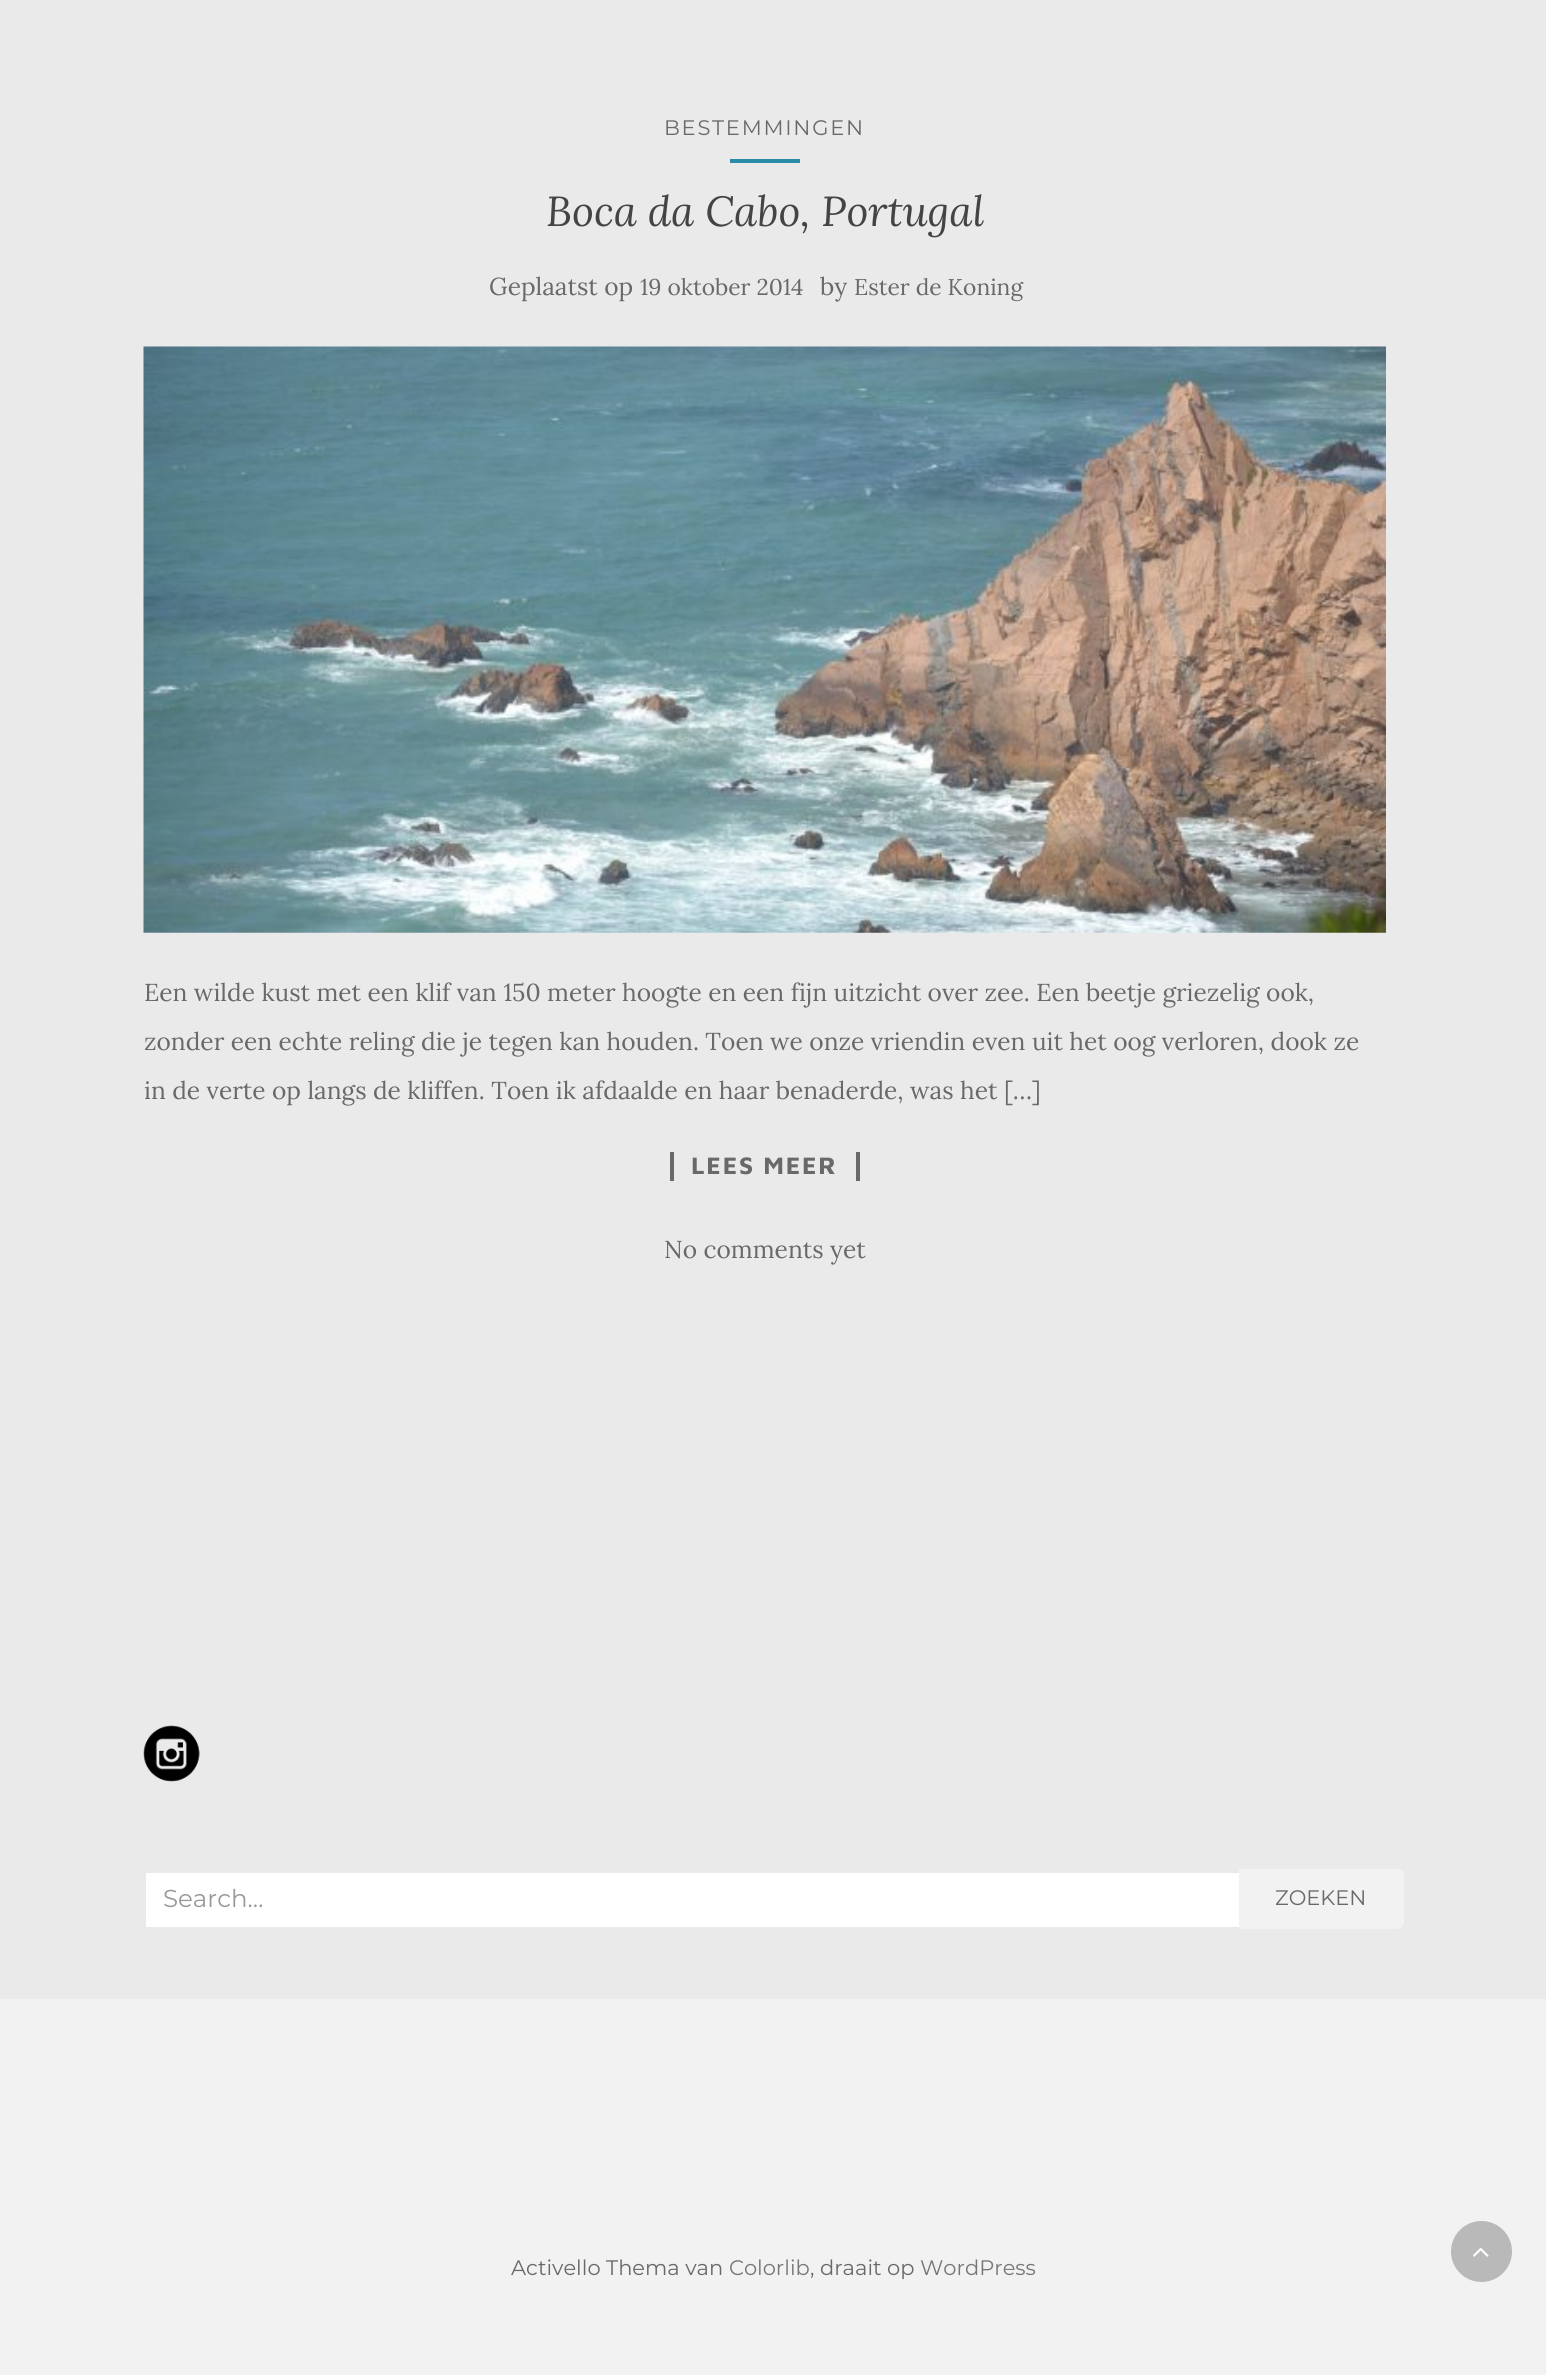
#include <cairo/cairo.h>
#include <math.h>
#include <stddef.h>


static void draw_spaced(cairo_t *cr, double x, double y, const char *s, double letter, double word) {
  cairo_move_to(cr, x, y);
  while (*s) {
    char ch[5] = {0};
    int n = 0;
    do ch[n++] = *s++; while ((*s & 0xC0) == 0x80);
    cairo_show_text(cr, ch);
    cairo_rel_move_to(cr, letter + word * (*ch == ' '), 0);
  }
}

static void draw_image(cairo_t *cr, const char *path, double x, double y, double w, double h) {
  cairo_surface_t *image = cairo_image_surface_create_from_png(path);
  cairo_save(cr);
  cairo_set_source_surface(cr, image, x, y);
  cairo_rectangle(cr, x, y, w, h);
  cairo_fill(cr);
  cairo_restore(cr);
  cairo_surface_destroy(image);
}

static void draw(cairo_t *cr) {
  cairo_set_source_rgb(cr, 234 / 255.0, 234 / 255.0, 234 / 255.0);
  cairo_paint(cr);
  cairo_set_source_rgb(cr, 43 / 255.0, 139 / 255.0, 168 / 255.0);
  cairo_rectangle(cr, 730, 159, 70, 4);
  cairo_fill(cr);
  draw_image(cr, "images/1.png", 143, 346, 1243, 587);
  cairo_set_source_rgb(cr, 105 / 255.0, 105 / 255.0, 105 / 255.0);
  cairo_rectangle(cr, 856, 1152, 4, 29);
  cairo_fill(cr);
  cairo_rectangle(cr, 670, 1152, 4, 29);
  cairo_fill(cr);
  draw_image(cr, "images/2.png", 143, 1725, 57, 57);
  cairo_set_source_rgb(cr, 1, 1, 1);
  cairo_rectangle(cr, 146, 1873, 1093, 54);
  cairo_fill(cr);
  cairo_set_source_rgb(cr, 242 / 255.0, 242 / 255.0, 242 / 255.0);
  cairo_new_path(cr);
  cairo_move_to(cr, 1239, 1869);
  cairo_line_to(cr, 1397, 1869);
  cairo_curve_to(cr, 1401, 1869, 1404, 1872, 1404, 1876);
  cairo_line_to(cr, 1404, 1922);
  cairo_curve_to(cr, 1404, 1926, 1401, 1929, 1397, 1929);
  cairo_line_to(cr, 1239, 1929);
  cairo_close_path(cr);
  cairo_fill(cr);
  cairo_rectangle(cr, 0, 1999, 1546, 376);
  cairo_fill(cr);
  cairo_set_source_rgb(cr, 185 / 255.0, 185 / 255.0, 185 / 255.0);
  cairo_arc(cr, 1481.5, 2251.5, 30.5, 0, 2 * M_PI);
  cairo_fill(cr);
  draw_image(cr, "images/3.png", 1473, 2247, 16, 10);
  cairo_select_font_face(cr, "Montserrat", CAIRO_FONT_SLANT_NORMAL, CAIRO_FONT_WEIGHT_NORMAL);
  cairo_set_font_size(cr, 21);
  cairo_set_source_rgb(cr, 105 / 255.0, 105 / 255.0, 105 / 255.0);
  draw_spaced(cr, 664, 135, "BESTEMMINGEN", 1.75, 0);
  cairo_select_font_face(cr, "Lora", CAIRO_FONT_SLANT_ITALIC, CAIRO_FONT_WEIGHT_NORMAL);
  cairo_set_font_size(cr, 42);
  cairo_set_source_rgb(cr, 68 / 255.0, 68 / 255.0, 68 / 255.0);
  cairo_move_to(cr, 546, 226);
  cairo_show_text(cr, "Boca da Cabo, Portugal");
  cairo_select_font_face(cr, "Lora", CAIRO_FONT_SLANT_NORMAL, CAIRO_FONT_WEIGHT_NORMAL);
  cairo_set_font_size(cr, 24.5);
  cairo_set_source_rgb(cr, 105 / 255.0, 105 / 255.0, 105 / 255.0);
  cairo_move_to(cr, 489, 295);
  cairo_show_text(cr, "Geplaatst op");
  cairo_set_font_size(cr, 22.75);
  cairo_move_to(cr, 640, 295);
  cairo_show_text(cr, "19 oktober 2014");
  cairo_set_font_size(cr, 24.5);
  cairo_move_to(cr, 820, 295);
  cairo_show_text(cr, "by");
  cairo_set_font_size(cr, 22.75);
  cairo_move_to(cr, 854, 295);
  cairo_show_text(cr, "Ester de Koning");
  cairo_set_font_size(cr, 24.5);
  cairo_move_to(cr, 144, 1001);
  cairo_show_text(cr, "Een wilde kust met een klif van 150 meter hoogte en een fijn uitzicht over zee. Een beetje griezelig ook,");
  cairo_move_to(cr, 144, 1050);
  cairo_show_text(cr, "zonder een echte reling die je tegen kan houden. Toen we onze vriendin even uit het oog verloren, dook ze");
  cairo_move_to(cr, 144, 1099);
  cairo_show_text(cr, "in de verte op langs de kliffen. Toen ik afdaalde en haar benaderde, was het […]");
  cairo_select_font_face(cr, "Maven Pro", CAIRO_FONT_SLANT_NORMAL, CAIRO_FONT_WEIGHT_BOLD);
  draw_spaced(cr, 691, 1174, "LEES MEER", 1.75, 0);
  cairo_select_font_face(cr, "Lora", CAIRO_FONT_SLANT_NORMAL, CAIRO_FONT_WEIGHT_NORMAL);
  cairo_move_to(cr, 664, 1258);
  cairo_show_text(cr, "No comments yet");
  cairo_select_font_face(cr, "Montserrat", CAIRO_FONT_SLANT_NORMAL, CAIRO_FONT_WEIGHT_NORMAL);
  cairo_set_source_rgb(cr, 153 / 255.0, 153 / 255.0, 153 / 255.0);
  cairo_move_to(cr, 163, 1907);
  cairo_show_text(cr, "Search…");
  cairo_set_font_size(cr, 21);
  cairo_set_source_rgb(cr, 105 / 255.0, 105 / 255.0, 105 / 255.0);
  cairo_move_to(cr, 1275, 1905);
  cairo_show_text(cr, "ZOEKEN");
  cairo_move_to(cr, 511, 2275);
  cairo_show_text(cr, "Activello Thema van");
  cairo_set_source_rgb(cr, 119 / 255.0, 119 / 255.0, 119 / 255.0);
  cairo_move_to(cr, 729, 2275);
  cairo_show_text(cr, "Colorlib");
  cairo_set_source_rgb(cr, 105 / 255.0, 105 / 255.0, 105 / 255.0);
  cairo_move_to(cr, 810, 2275);
  cairo_show_text(cr, ", draait op");
  cairo_set_source_rgb(cr, 119 / 255.0, 119 / 255.0, 119 / 255.0);
  cairo_move_to(cr, 920, 2275);
  cairo_show_text(cr, "WordPress");
}

int main(void) {
  cairo_surface_t *surface = cairo_image_surface_create(CAIRO_FORMAT_RGB24, 1546, 2375);
  cairo_t *cr = cairo_create(surface);
  cairo_font_options_t *options = cairo_font_options_create();
  cairo_font_options_set_hint_metrics(options, CAIRO_HINT_METRICS_OFF);
  cairo_font_options_set_hint_style(options, CAIRO_HINT_STYLE_NONE);
  cairo_set_font_options(cr, options);
  cairo_set_miter_limit(cr, 4);
  draw(cr);
  cairo_surface_write_to_png(surface, "out.png");
  cairo_font_options_destroy(options);
  cairo_destroy(cr);
  cairo_surface_destroy(surface);
  return 0;
}
